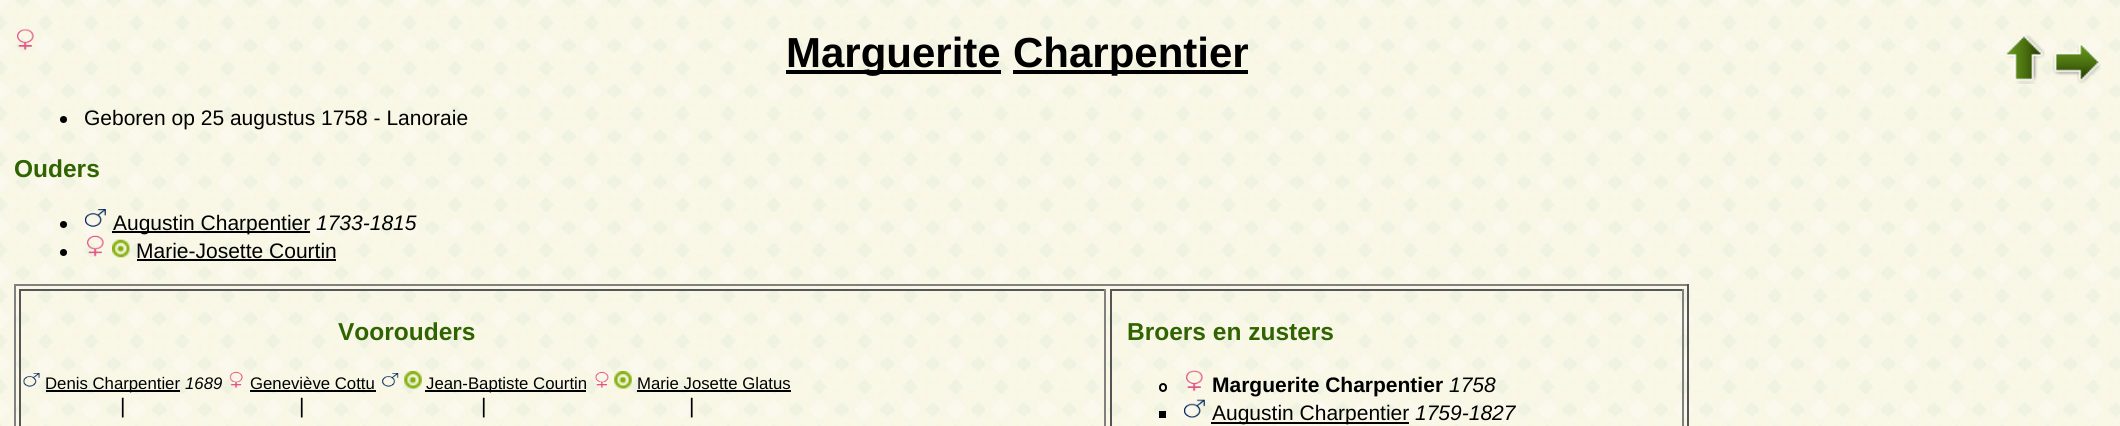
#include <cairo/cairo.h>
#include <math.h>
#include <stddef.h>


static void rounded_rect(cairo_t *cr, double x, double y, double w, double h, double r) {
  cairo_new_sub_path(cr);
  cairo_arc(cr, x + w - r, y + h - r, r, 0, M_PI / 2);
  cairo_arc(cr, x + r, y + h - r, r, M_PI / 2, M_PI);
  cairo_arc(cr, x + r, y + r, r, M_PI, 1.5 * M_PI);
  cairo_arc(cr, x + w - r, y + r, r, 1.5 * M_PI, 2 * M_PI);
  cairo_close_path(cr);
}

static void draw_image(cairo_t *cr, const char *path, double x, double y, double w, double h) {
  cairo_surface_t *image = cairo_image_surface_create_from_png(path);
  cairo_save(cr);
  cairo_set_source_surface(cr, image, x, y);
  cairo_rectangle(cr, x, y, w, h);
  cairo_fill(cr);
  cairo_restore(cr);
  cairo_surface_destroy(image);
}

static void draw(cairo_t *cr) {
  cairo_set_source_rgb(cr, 1, 1, 1);
  cairo_paint(cr);
  draw_image(cr, "images/1.png", 0, 0, 2120, 426);
  draw_image(cr, "images/2.png", 17, 29, 17, 21);
  cairo_set_source_rgb(cr, 0, 0, 0);
  cairo_rectangle(cr, 786, 70, 215, 4);
  cairo_fill(cr);
  cairo_rectangle(cr, 1013, 70, 235, 4);
  cairo_fill(cr);
  draw_image(cr, "images/3.png", 2006, 35, 39, 49);
  draw_image(cr, "images/4.png", 2052, 43, 49, 41);
  cairo_arc(cr, 63.5, 119.5, 3.5, 0, 2 * M_PI);
  cairo_fill(cr);
  cairo_arc(cr, 63.5, 224.5, 3.5, 0, 2 * M_PI);
  cairo_fill(cr);
  draw_image(cr, "images/5.png", 85, 209, 21, 18);
  cairo_rectangle(cr, 112, 231, 198, 2);
  cairo_fill(cr);
  cairo_arc(cr, 63.5, 252.5, 3.5, 0, 2 * M_PI);
  cairo_fill(cr);
  draw_image(cr, "images/6.png", 87, 235, 17, 22);
  draw_image(cr, "images/7.png", 112, 239, 18, 19);
  cairo_rectangle(cr, 137, 259, 199, 2);
  cairo_fill(cr);
  cairo_set_source_rgb(cr, 128 / 255.0, 128 / 255.0, 128 / 255.0);
  cairo_rectangle(cr, 14, 284, 1675, 2);
  cairo_fill(cr);
  cairo_set_source_rgb(cr, 85 / 255.0, 85 / 255.0, 85 / 255.0);
  cairo_rectangle(cr, 1687, 284, 2, 142);
  cairo_fill(cr);
  cairo_set_source_rgb(cr, 128 / 255.0, 128 / 255.0, 128 / 255.0);
  cairo_rectangle(cr, 14, 284, 2, 142);
  cairo_fill(cr);
  cairo_set_source_rgb(cr, 85 / 255.0, 85 / 255.0, 85 / 255.0);
  cairo_rectangle(cr, 19, 289, 1087, 2);
  cairo_fill(cr);
  cairo_set_source_rgb(cr, 128 / 255.0, 128 / 255.0, 128 / 255.0);
  cairo_rectangle(cr, 1104, 289, 2, 137);
  cairo_fill(cr);
  cairo_set_source_rgb(cr, 85 / 255.0, 85 / 255.0, 85 / 255.0);
  cairo_rectangle(cr, 19, 289, 2, 137);
  cairo_fill(cr);
  draw_image(cr, "images/8.png", 23, 373, 17, 14);
  cairo_set_source_rgb(cr, 0, 0, 0);
  cairo_rectangle(cr, 46, 390, 134, 2);
  cairo_fill(cr);
  draw_image(cr, "images/9.png", 229, 371, 14, 17);
  cairo_rectangle(cr, 250, 390, 126, 2);
  cairo_fill(cr);
  draw_image(cr, "images/10.png", 382, 373, 17, 14);
  draw_image(cr, "images/11.png", 404, 371, 18, 18);
  cairo_rectangle(cr, 425, 390, 161, 2);
  cairo_fill(cr);
  draw_image(cr, "images/12.png", 595, 371, 14, 17);
  draw_image(cr, "images/13.png", 614, 371, 18, 18);
  cairo_rectangle(cr, 637, 390, 154, 2);
  cairo_fill(cr);
  cairo_set_source_rgb(cr, 85 / 255.0, 85 / 255.0, 85 / 255.0);
  cairo_rectangle(cr, 1110, 289, 574, 2);
  cairo_fill(cr);
  cairo_set_source_rgb(cr, 128 / 255.0, 128 / 255.0, 128 / 255.0);
  cairo_rectangle(cr, 1682, 289, 2, 137);
  cairo_fill(cr);
  cairo_set_source_rgb(cr, 85 / 255.0, 85 / 255.0, 85 / 255.0);
  cairo_rectangle(cr, 1110, 289, 2, 137);
  cairo_fill(cr);
  rounded_rect(cr, 1160, 384, 6, 7, 3);
  cairo_set_source_rgb(cr, 0, 0, 0);
  cairo_stroke(cr);
  draw_image(cr, "images/14.png", 1186, 370, 17, 22);
  cairo_rectangle(cr, 1159, 411, 7, 7);
  cairo_fill(cr);
  draw_image(cr, "images/15.png", 1184, 399, 21, 19);
  cairo_rectangle(cr, 1211, 422, 198, 2);
  cairo_fill(cr);
  cairo_select_font_face(cr, "Liberation Sans", CAIRO_FONT_SLANT_NORMAL, CAIRO_FONT_WEIGHT_BOLD);
  cairo_set_font_size(cr, 42);
  cairo_move_to(cr, 786, 67);
  cairo_show_text(cr, "Marguerite");
  cairo_move_to(cr, 1013, 67);
  cairo_show_text(cr, "Charpentier");
  cairo_select_font_face(cr, "Liberation Sans", CAIRO_FONT_SLANT_NORMAL, CAIRO_FONT_WEIGHT_NORMAL);
  cairo_set_font_size(cr, 21);
  cairo_move_to(cr, 84, 125);
  cairo_show_text(cr, "Geboren op 25 augustus 1758 - Lanoraie");
  cairo_select_font_face(cr, "Liberation Sans", CAIRO_FONT_SLANT_NORMAL, CAIRO_FONT_WEIGHT_BOLD);
  cairo_set_font_size(cr, 24.5);
  cairo_set_source_rgb(cr, 47 / 255.0, 100 / 255.0, 0);
  cairo_move_to(cr, 14, 177);
  cairo_show_text(cr, "Ouders");
  cairo_select_font_face(cr, "Liberation Sans", CAIRO_FONT_SLANT_NORMAL, CAIRO_FONT_WEIGHT_NORMAL);
  cairo_set_font_size(cr, 21);
  cairo_set_source_rgb(cr, 0, 0, 0);
  cairo_move_to(cr, 113, 230);
  cairo_show_text(cr, "Augustin Charpentier");
  cairo_select_font_face(cr, "Liberation Sans", CAIRO_FONT_SLANT_ITALIC, CAIRO_FONT_WEIGHT_NORMAL);
  cairo_move_to(cr, 316, 230);
  cairo_show_text(cr, "1733-1815");
  cairo_select_font_face(cr, "Liberation Sans", CAIRO_FONT_SLANT_NORMAL, CAIRO_FONT_WEIGHT_NORMAL);
  cairo_move_to(cr, 136, 258);
  cairo_show_text(cr, "Marie-Josette Courtin");
  cairo_select_font_face(cr, "Liberation Sans", CAIRO_FONT_SLANT_NORMAL, CAIRO_FONT_WEIGHT_BOLD);
  cairo_set_font_size(cr, 24.5);
  cairo_set_source_rgb(cr, 47 / 255.0, 100 / 255.0, 0);
  cairo_move_to(cr, 338, 340);
  cairo_show_text(cr, "Voorouders");
  cairo_select_font_face(cr, "Liberation Sans", CAIRO_FONT_SLANT_NORMAL, CAIRO_FONT_WEIGHT_NORMAL);
  cairo_set_font_size(cr, 16.75);
  cairo_set_source_rgb(cr, 0, 0, 0);
  cairo_move_to(cr, 45, 389);
  cairo_show_text(cr, "Denis Charpentier");
  cairo_select_font_face(cr, "Liberation Sans", CAIRO_FONT_SLANT_ITALIC, CAIRO_FONT_WEIGHT_NORMAL);
  cairo_move_to(cr, 185, 389);
  cairo_show_text(cr, "1689");
  cairo_select_font_face(cr, "Liberation Sans", CAIRO_FONT_SLANT_NORMAL, CAIRO_FONT_WEIGHT_NORMAL);
  cairo_move_to(cr, 250, 389);
  cairo_show_text(cr, "Geneviève Cottu");
  cairo_move_to(cr, 426, 389);
  cairo_show_text(cr, "Jean-Baptiste Courtin");
  cairo_move_to(cr, 637, 389);
  cairo_show_text(cr, "Marie Josette Glatus");
  cairo_set_font_size(cr, 21);
  cairo_move_to(cr, 120, 413);
  cairo_show_text(cr, "|");
  cairo_move_to(cr, 299, 413);
  cairo_show_text(cr, "|");
  cairo_move_to(cr, 481, 413);
  cairo_show_text(cr, "|");
  cairo_move_to(cr, 689, 413);
  cairo_show_text(cr, "|");
  cairo_select_font_face(cr, "Liberation Sans", CAIRO_FONT_SLANT_NORMAL, CAIRO_FONT_WEIGHT_BOLD);
  cairo_set_font_size(cr, 24.5);
  cairo_set_source_rgb(cr, 47 / 255.0, 100 / 255.0, 0);
  cairo_move_to(cr, 1127, 340);
  cairo_show_text(cr, "Broers en zusters");
  cairo_set_font_size(cr, 21);
  cairo_set_source_rgb(cr, 0, 0, 0);
  cairo_move_to(cr, 1212, 392);
  cairo_show_text(cr, "Marguerite Charpentier");
  cairo_select_font_face(cr, "Liberation Sans", CAIRO_FONT_SLANT_ITALIC, CAIRO_FONT_WEIGHT_NORMAL);
  cairo_move_to(cr, 1449, 392);
  cairo_show_text(cr, "1758");
  cairo_select_font_face(cr, "Liberation Sans", CAIRO_FONT_SLANT_NORMAL, CAIRO_FONT_WEIGHT_NORMAL);
  cairo_move_to(cr, 1212, 420);
  cairo_show_text(cr, "Augustin Charpentier");
  cairo_select_font_face(cr, "Liberation Sans", CAIRO_FONT_SLANT_ITALIC, CAIRO_FONT_WEIGHT_NORMAL);
  cairo_move_to(cr, 1415, 420);
  cairo_show_text(cr, "1759-1827");
}

int main(void) {
  cairo_surface_t *surface = cairo_image_surface_create(CAIRO_FORMAT_RGB24, 2120, 426);
  cairo_t *cr = cairo_create(surface);
  cairo_font_options_t *options = cairo_font_options_create();
  cairo_font_options_set_hint_metrics(options, CAIRO_HINT_METRICS_OFF);
  cairo_font_options_set_hint_style(options, CAIRO_HINT_STYLE_NONE);
  cairo_set_font_options(cr, options);
  cairo_set_miter_limit(cr, 4);
  draw(cr);
  cairo_surface_write_to_png(surface, "out.png");
  cairo_font_options_destroy(options);
  cairo_destroy(cr);
  cairo_surface_destroy(surface);
  return 0;
}
